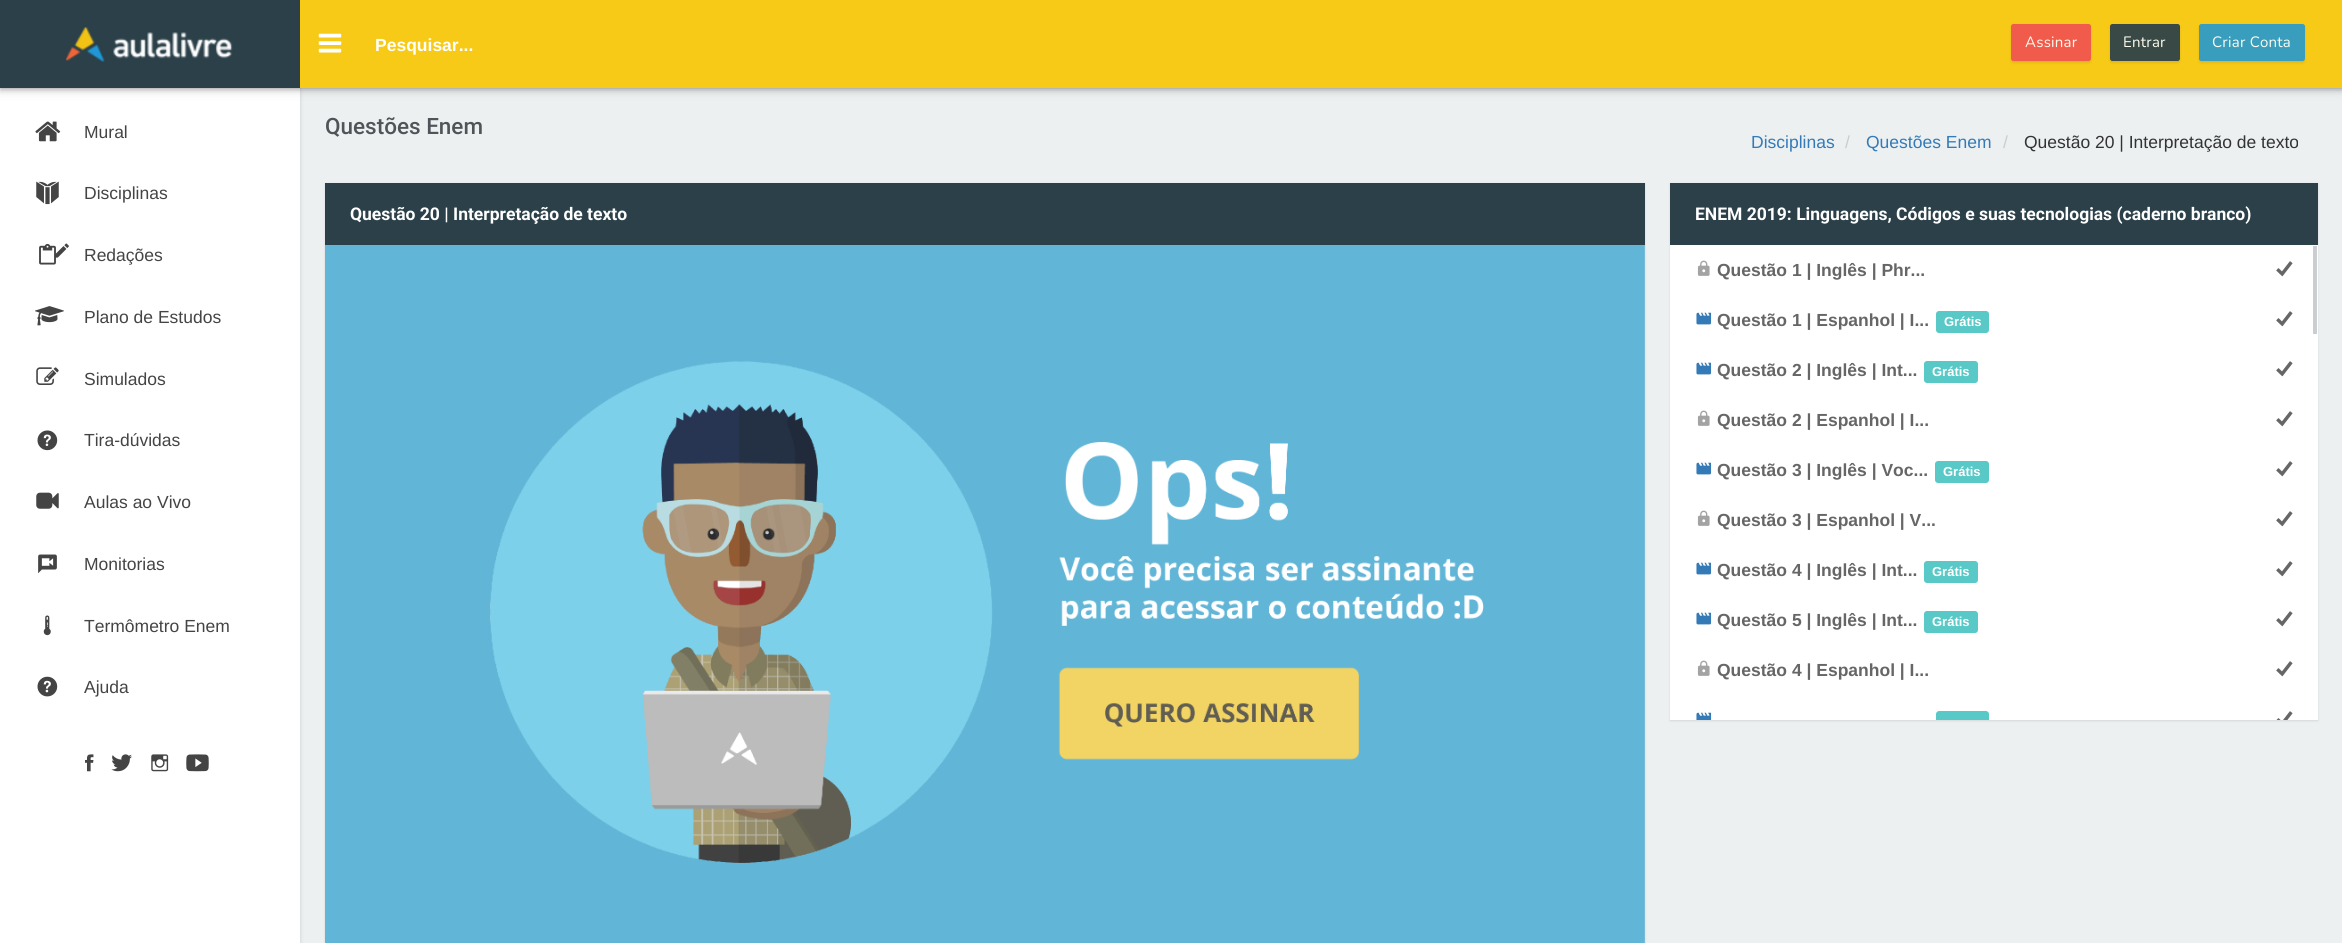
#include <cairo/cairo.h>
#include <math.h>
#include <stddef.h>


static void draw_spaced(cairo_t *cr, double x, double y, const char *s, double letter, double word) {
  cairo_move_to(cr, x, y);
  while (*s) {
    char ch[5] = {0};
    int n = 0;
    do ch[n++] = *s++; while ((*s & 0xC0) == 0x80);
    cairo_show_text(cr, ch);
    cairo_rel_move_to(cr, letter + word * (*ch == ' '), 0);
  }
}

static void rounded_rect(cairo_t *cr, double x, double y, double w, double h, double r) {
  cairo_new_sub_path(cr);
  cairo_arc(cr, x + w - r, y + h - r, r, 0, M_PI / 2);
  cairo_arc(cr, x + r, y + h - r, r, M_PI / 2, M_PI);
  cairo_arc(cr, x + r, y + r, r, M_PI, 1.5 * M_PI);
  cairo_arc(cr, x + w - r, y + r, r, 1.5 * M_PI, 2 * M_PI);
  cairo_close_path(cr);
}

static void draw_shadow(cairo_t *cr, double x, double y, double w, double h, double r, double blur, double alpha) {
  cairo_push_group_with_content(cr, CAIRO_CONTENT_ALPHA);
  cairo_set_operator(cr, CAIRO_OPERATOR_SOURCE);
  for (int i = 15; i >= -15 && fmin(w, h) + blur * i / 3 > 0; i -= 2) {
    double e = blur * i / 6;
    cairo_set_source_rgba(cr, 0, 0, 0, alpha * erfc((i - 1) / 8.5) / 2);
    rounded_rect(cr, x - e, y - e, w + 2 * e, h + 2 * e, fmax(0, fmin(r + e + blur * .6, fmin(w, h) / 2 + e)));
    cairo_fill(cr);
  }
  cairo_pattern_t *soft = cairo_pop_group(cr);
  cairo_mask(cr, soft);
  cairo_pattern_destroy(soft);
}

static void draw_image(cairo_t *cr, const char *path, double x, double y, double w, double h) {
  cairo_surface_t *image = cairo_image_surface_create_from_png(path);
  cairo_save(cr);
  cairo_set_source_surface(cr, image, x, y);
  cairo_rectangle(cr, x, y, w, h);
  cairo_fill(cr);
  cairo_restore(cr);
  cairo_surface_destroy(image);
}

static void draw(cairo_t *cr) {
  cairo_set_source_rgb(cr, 236 / 255.0, 240 / 255.0, 241 / 255.0);
  cairo_paint(cr);
  cairo_set_source_rgb(cr, 0, 0, 0);
  draw_shadow(cr, 0, 89, 300, 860, 0, 2, 0.15);
  cairo_set_source_rgb(cr, 1, 1, 1);
  cairo_rectangle(cr, 0, 88, 300, 855);
  cairo_fill(cr);
  cairo_set_source_rgb(cr, 0, 0, 0);
  draw_shadow(cr, 1, 0, 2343, 88, 0, 2, 0.2);
  draw_shadow(cr, 0, 3, 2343, 87, 0, 6, 0.12);
  draw_shadow(cr, 0, 3, 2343, 87, 0, 3, 0.16);
  cairo_set_source_rgb(cr, 43 / 255.0, 64 / 255.0, 73 / 255.0);
  cairo_rectangle(cr, 0, 0, 300, 88);
  cairo_fill(cr);
  draw_image(cr, "images/1.png", 66, 27, 39, 35);
  draw_image(cr, "images/2.png", 113, 32, 120, 27);
  cairo_set_source_rgb(cr, 247 / 255.0, 202 / 255.0, 24 / 255.0);
  cairo_rectangle(cr, 300, 0, 2042, 88);
  cairo_fill(cr);
  draw_image(cr, "images/3.png", 318, 33, 24, 20);
  cairo_set_source_rgb(cr, 17 / 255.0, 14 / 255.0, 2 / 255.0);
  draw_shadow(cr, 2011, 25, 80, 38, 2.5, 1, 0.1);
  cairo_set_source_rgb(cr, 240 / 255.0, 91 / 255.0, 76 / 255.0);
  rounded_rect(cr, 2011.5, 24.5, 79, 36, 2);
  cairo_fill_preserve(cr);
  cairo_set_line_width(cr, 1);
  cairo_stroke(cr);
  cairo_set_source_rgb(cr, 17 / 255.0, 14 / 255.0, 2 / 255.0);
  draw_shadow(cr, 2110, 25, 70, 38, 2.5, 1, 0.1);
  cairo_set_source_rgb(cr, 57 / 255.0, 74 / 255.0, 70 / 255.0);
  rounded_rect(cr, 2110.5, 24.5, 69, 36, 2);
  cairo_fill_preserve(cr);
  cairo_stroke(cr);
  cairo_set_source_rgb(cr, 17 / 255.0, 14 / 255.0, 2 / 255.0);
  draw_shadow(cr, 2199, 25, 106, 38, 2.5, 1, 0.1);
  cairo_set_source_rgb(cr, 57 / 255.0, 157 / 255.0, 189 / 255.0);
  rounded_rect(cr, 2199.5, 24.5, 105, 36, 2);
  cairo_fill_preserve(cr);
  cairo_stroke(cr);
  draw_image(cr, "images/4.png", 35, 121, 26, 21);
  draw_image(cr, "images/5.png", 36, 181, 23, 24);
  draw_image(cr, "images/6.png", 39, 243, 17, 22);
  draw_image(cr, "images/7.png", 55, 243, 14, 15);
  draw_image(cr, "images/8.png", 35, 306, 29, 20);
  draw_image(cr, "images/9.png", 36, 367, 23, 18);
  draw_image(cr, "images/10.png", 37, 430, 21, 21);
  draw_image(cr, "images/11.png", 36, 492, 23, 17);
  draw_image(cr, "images/12.png", 38, 554, 19, 20);
  draw_image(cr, "images/13.png", 43, 615, 8, 21);
  draw_image(cr, "images/14.png", 37, 676, 21, 21);
  draw_image(cr, "images/15.png", 85, 754, 9, 18);
  draw_image(cr, "images/16.png", 111, 754, 21, 18);
  draw_image(cr, "images/17.png", 151, 754, 18, 18);
  draw_image(cr, "images/18.png", 186, 754, 23, 18);
  cairo_set_source_rgb(cr, 0, 0, 0);
  draw_shadow(cr, 325, 184, 1320, 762, 0, 1, 0.1);
  cairo_set_source_rgb(cr, 43 / 255.0, 64 / 255.0, 73 / 255.0);
  cairo_rectangle(cr, 325, 183, 1320, 62);
  cairo_fill(cr);
  draw_image(cr, "images/19.png", 325, 245, 1320, 698);
  cairo_set_source_rgb(cr, 0, 0, 0);
  draw_shadow(cr, 1670, 184, 648, 537, 0, 1, 0.1);
  cairo_set_source_rgb(cr, 1, 1, 1);
  cairo_rectangle(cr, 1670, 245, 648, 475);
  cairo_fill(cr);
  cairo_set_source_rgb(cr, 43 / 255.0, 64 / 255.0, 73 / 255.0);
  cairo_rectangle(cr, 1670, 183, 648, 62);
  cairo_fill(cr);
  draw_image(cr, "images/20.png", 1697, 260, 13, 16);
  draw_image(cr, "images/21.png", 2276, 261, 17, 16);
  draw_image(cr, "images/22.png", 1696, 312, 16, 13);
  cairo_set_source_rgb(cr, 88 / 255.0, 201 / 255.0, 199 / 255.0);
  rounded_rect(cr, 1936, 311, 53, 22, 3);
  cairo_fill(cr);
  draw_image(cr, "images/21.png", 2276, 311, 17, 16);
  draw_image(cr, "images/22.png", 1696, 362, 16, 13);
  rounded_rect(cr, 1924, 361, 54, 22, 3);
  cairo_fill(cr);
  draw_image(cr, "images/21.png", 2276, 361, 17, 16);
  draw_image(cr, "images/20.png", 1697, 410, 13, 16);
  draw_image(cr, "images/21.png", 2276, 411, 17, 16);
  draw_image(cr, "images/22.png", 1696, 462, 16, 13);
  rounded_rect(cr, 1935, 461, 54, 22, 3);
  cairo_fill(cr);
  draw_image(cr, "images/21.png", 2276, 461, 17, 16);
  draw_image(cr, "images/20.png", 1697, 510, 13, 16);
  draw_image(cr, "images/21.png", 2276, 511, 17, 16);
  draw_image(cr, "images/22.png", 1696, 562, 16, 13);
  rounded_rect(cr, 1924, 561, 54, 22, 3);
  cairo_fill(cr);
  draw_image(cr, "images/21.png", 2276, 561, 17, 16);
  draw_image(cr, "images/22.png", 1696, 612, 16, 13);
  rounded_rect(cr, 1924, 611, 54, 22, 3);
  cairo_fill(cr);
  draw_image(cr, "images/21.png", 2276, 611, 17, 16);
  draw_image(cr, "images/20.png", 1697, 660, 13, 16);
  draw_image(cr, "images/21.png", 2276, 661, 17, 16);
  draw_image(cr, "images/23.png", 1696, 712, 16, 8);
  cairo_new_path(cr);
  cairo_move_to(cr, 1939, 711);
  cairo_line_to(cr, 1986, 711);
  cairo_curve_to(cr, 1987.5, 711, 1989, 712.5, 1989, 714);
  cairo_line_to(cr, 1989, 720);
  cairo_line_to(cr, 1936, 720);
  cairo_line_to(cr, 1936, 714);
  cairo_curve_to(cr, 1936, 712.5, 1937.5, 711, 1939, 711);
  cairo_close_path(cr);
  cairo_fill(cr);
  draw_image(cr, "images/24.png", 2276, 711, 17, 9);
  cairo_set_source_rgb(cr, 204 / 255.0, 205 / 255.0, 209 / 255.0);
  cairo_rectangle(cr, 2313, 246, 4, 88);
  cairo_fill(cr);
  cairo_select_font_face(cr, "Liberation Sans", CAIRO_FONT_SLANT_NORMAL, CAIRO_FONT_WEIGHT_BOLD);
  cairo_set_font_size(cr, 17.5);
  cairo_set_source_rgb(cr, 1, 1, 1);
  cairo_move_to(cr, 375, 51);
  cairo_show_text(cr, "Pesquisar...");
  cairo_select_font_face(cr, "Nunito", CAIRO_FONT_SLANT_NORMAL, CAIRO_FONT_WEIGHT_NORMAL);
  cairo_set_font_size(cr, 15);
  cairo_set_source_rgb(cr, 254 / 255.0, 251 / 255.0, 239 / 255.0);
  draw_spaced(cr, 2025, 47, "Assinar", 0.25, 0);
  draw_spaced(cr, 2123, 47, "Entrar", 0.25, 0);
  draw_spaced(cr, 2212, 47, "Criar Conta", 0.25, 0);
  cairo_select_font_face(cr, "Liberation Sans", CAIRO_FONT_SLANT_NORMAL, CAIRO_FONT_WEIGHT_NORMAL);
  cairo_set_font_size(cr, 17.5);
  cairo_set_source_rgb(cr, 68 / 255.0, 68 / 255.0, 68 / 255.0);
  cairo_move_to(cr, 84, 138);
  cairo_show_text(cr, "Mural");
  cairo_move_to(cr, 84, 199);
  cairo_show_text(cr, "Disciplinas");
  cairo_move_to(cr, 84, 261);
  cairo_show_text(cr, "Redações");
  cairo_move_to(cr, 84, 323);
  cairo_show_text(cr, "Plano de Estudos");
  cairo_move_to(cr, 84, 385);
  cairo_show_text(cr, "Simulados");
  cairo_move_to(cr, 84, 446);
  cairo_show_text(cr, "Tira-dúvidas");
  cairo_move_to(cr, 84, 508);
  cairo_show_text(cr, "Aulas ao Vivo");
  cairo_move_to(cr, 84, 570);
  cairo_show_text(cr, "Monitorias");
  cairo_move_to(cr, 84, 632);
  cairo_show_text(cr, "Termômetro Enem");
  cairo_move_to(cr, 84, 693);
  cairo_show_text(cr, "Ajuda");
  cairo_select_font_face(cr, "Roboto Medium", CAIRO_FONT_SLANT_NORMAL, CAIRO_FONT_WEIGHT_NORMAL);
  cairo_set_font_size(cr, 22.5);
  cairo_set_source_rgb(cr, 80 / 255.0, 84 / 255.0, 88 / 255.0);
  cairo_move_to(cr, 325, 134);
  cairo_show_text(cr, "Questões Enem");
  cairo_select_font_face(cr, "Liberation Sans", CAIRO_FONT_SLANT_NORMAL, CAIRO_FONT_WEIGHT_NORMAL);
  cairo_set_font_size(cr, 17.5);
  cairo_set_source_rgb(cr, 51 / 255.0, 122 / 255.0, 183 / 255.0);
  cairo_move_to(cr, 1751, 148);
  cairo_show_text(cr, "Disciplinas");
  cairo_set_source_rgb(cr, 204 / 255.0, 204 / 255.0, 204 / 255.0);
  cairo_move_to(cr, 1845, 148);
  cairo_show_text(cr, "/");
  cairo_set_source_rgb(cr, 51 / 255.0, 122 / 255.0, 183 / 255.0);
  cairo_move_to(cr, 1866, 148);
  cairo_show_text(cr, "Questões Enem");
  cairo_set_source_rgb(cr, 204 / 255.0, 204 / 255.0, 204 / 255.0);
  cairo_move_to(cr, 2003, 148);
  cairo_show_text(cr, "/");
  cairo_set_source_rgb(cr, 51 / 255.0, 51 / 255.0, 51 / 255.0);
  cairo_move_to(cr, 2024, 148);
  cairo_show_text(cr, "Questão 20 | Interpretação de texto");
  cairo_select_font_face(cr, "Roboto", CAIRO_FONT_SLANT_NORMAL, CAIRO_FONT_WEIGHT_BOLD);
  cairo_set_source_rgb(cr, 1, 1, 1);
  cairo_move_to(cr, 350, 220);
  cairo_show_text(cr, "Questão 20 | Interpretação de texto");
  cairo_move_to(cr, 1695, 220);
  cairo_show_text(cr, "ENEM 2019: Linguagens, Códigos e suas tecnologias (caderno branco)");
  cairo_select_font_face(cr, "Liberation Sans", CAIRO_FONT_SLANT_NORMAL, CAIRO_FONT_WEIGHT_BOLD);
  cairo_set_source_rgb(cr, 102 / 255.0, 102 / 255.0, 102 / 255.0);
  cairo_move_to(cr, 1717, 276);
  cairo_show_text(cr, "Questão 1 | Inglês | Phr...");
  cairo_move_to(cr, 1717, 326);
  cairo_show_text(cr, "Questão 1 | Espanhol | I...");
  cairo_set_font_size(cr, 13);
  cairo_set_source_rgb(cr, 1, 1, 1);
  cairo_move_to(cr, 1944, 326);
  cairo_show_text(cr, "Grátis");
  cairo_set_font_size(cr, 17.5);
  cairo_set_source_rgb(cr, 102 / 255.0, 102 / 255.0, 102 / 255.0);
  cairo_move_to(cr, 1717, 376);
  cairo_show_text(cr, "Questão 2 | Inglês | Int...");
  cairo_set_font_size(cr, 13);
  cairo_set_source_rgb(cr, 1, 1, 1);
  cairo_move_to(cr, 1932, 376);
  cairo_show_text(cr, "Grátis");
  cairo_set_font_size(cr, 17.5);
  cairo_set_source_rgb(cr, 102 / 255.0, 102 / 255.0, 102 / 255.0);
  cairo_move_to(cr, 1717, 426);
  cairo_show_text(cr, "Questão 2 | Espanhol | I...");
  cairo_move_to(cr, 1717, 476);
  cairo_show_text(cr, "Questão 3 | Inglês | Voc...");
  cairo_set_font_size(cr, 13);
  cairo_set_source_rgb(cr, 1, 1, 1);
  cairo_move_to(cr, 1943, 476);
  cairo_show_text(cr, "Grátis");
  cairo_set_font_size(cr, 17.5);
  cairo_set_source_rgb(cr, 102 / 255.0, 102 / 255.0, 102 / 255.0);
  cairo_move_to(cr, 1717, 526);
  cairo_show_text(cr, "Questão 3 | Espanhol | V...");
  cairo_move_to(cr, 1717, 576);
  cairo_show_text(cr, "Questão 4 | Inglês | Int...");
  cairo_set_font_size(cr, 13);
  cairo_set_source_rgb(cr, 1, 1, 1);
  cairo_move_to(cr, 1932, 576);
  cairo_show_text(cr, "Grátis");
  cairo_set_font_size(cr, 17.5);
  cairo_set_source_rgb(cr, 102 / 255.0, 102 / 255.0, 102 / 255.0);
  cairo_move_to(cr, 1717, 626);
  cairo_show_text(cr, "Questão 5 | Inglês | Int...");
  cairo_set_font_size(cr, 13);
  cairo_set_source_rgb(cr, 1, 1, 1);
  cairo_move_to(cr, 1932, 626);
  cairo_show_text(cr, "Grátis");
  cairo_set_font_size(cr, 17.5);
  cairo_set_source_rgb(cr, 102 / 255.0, 102 / 255.0, 102 / 255.0);
  cairo_move_to(cr, 1717, 676);
  cairo_show_text(cr, "Questão 4 | Espanhol | I...");
}

int main(void) {
  cairo_surface_t *surface = cairo_image_surface_create(CAIRO_FORMAT_RGB24, 2342, 943);
  cairo_t *cr = cairo_create(surface);
  cairo_font_options_t *options = cairo_font_options_create();
  cairo_font_options_set_hint_metrics(options, CAIRO_HINT_METRICS_OFF);
  cairo_font_options_set_hint_style(options, CAIRO_HINT_STYLE_NONE);
  cairo_set_font_options(cr, options);
  cairo_set_miter_limit(cr, 4);
  draw(cr);
  cairo_surface_write_to_png(surface, "out.png");
  cairo_font_options_destroy(options);
  cairo_destroy(cr);
  cairo_surface_destroy(surface);
  return 0;
}
